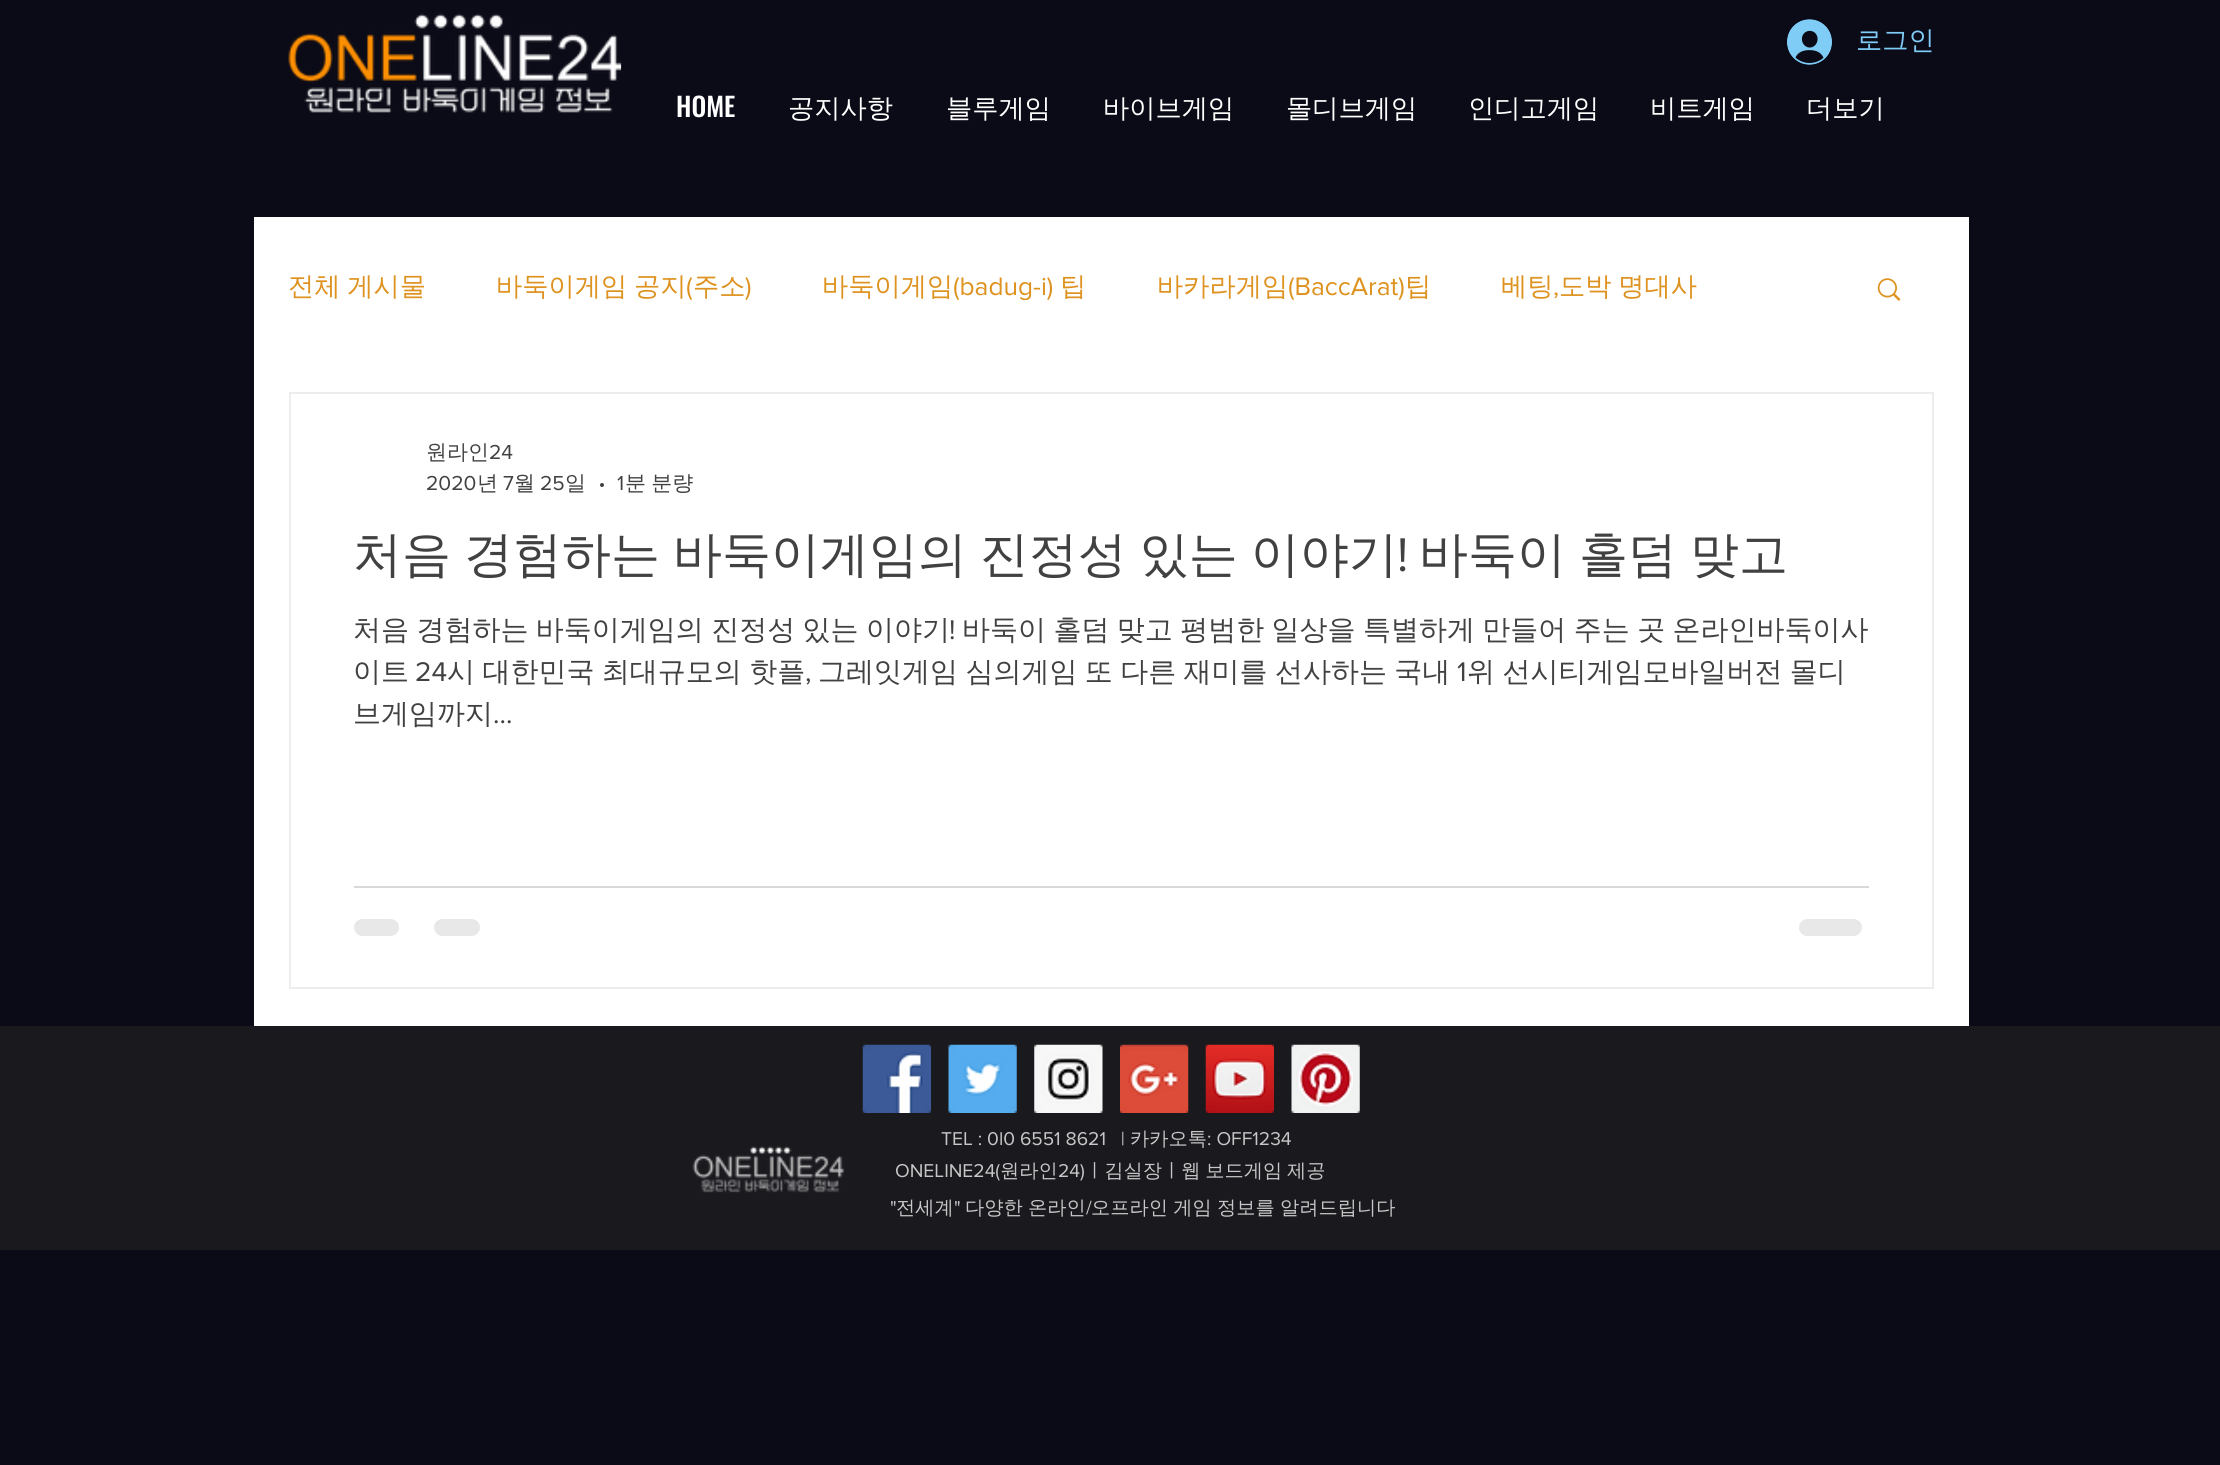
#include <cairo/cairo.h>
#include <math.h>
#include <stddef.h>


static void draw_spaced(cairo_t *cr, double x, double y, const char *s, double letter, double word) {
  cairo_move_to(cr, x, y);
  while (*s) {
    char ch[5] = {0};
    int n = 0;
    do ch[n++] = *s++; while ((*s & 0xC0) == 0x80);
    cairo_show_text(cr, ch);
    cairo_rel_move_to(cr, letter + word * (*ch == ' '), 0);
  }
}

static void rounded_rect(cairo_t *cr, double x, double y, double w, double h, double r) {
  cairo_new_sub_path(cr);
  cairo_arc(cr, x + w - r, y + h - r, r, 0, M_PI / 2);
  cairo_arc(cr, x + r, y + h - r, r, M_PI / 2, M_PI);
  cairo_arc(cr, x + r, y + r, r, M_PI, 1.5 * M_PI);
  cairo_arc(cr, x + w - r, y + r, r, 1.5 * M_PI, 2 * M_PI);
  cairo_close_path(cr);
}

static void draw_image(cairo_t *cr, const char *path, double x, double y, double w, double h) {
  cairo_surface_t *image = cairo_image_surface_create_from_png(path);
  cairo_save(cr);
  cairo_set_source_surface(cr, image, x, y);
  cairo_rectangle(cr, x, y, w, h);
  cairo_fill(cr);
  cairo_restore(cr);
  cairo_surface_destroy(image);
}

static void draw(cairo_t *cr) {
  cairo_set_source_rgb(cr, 11 / 255.0, 11 / 255.0, 23 / 255.0);
  cairo_paint(cr);
  draw_image(cr, "images/1.png", 288, 13, 334, 100);
  draw_image(cr, "images/2.png", 1787, 19, 45, 46);
  cairo_set_source_rgb(cr, 1, 1, 1);
  cairo_rectangle(cr, 254, 217, 1715, 809);
  cairo_fill(cr);
  draw_image(cr, "images/3.png", 1877, 278, 24, 23);
  cairo_rectangle(cr, 290, 393, 1643, 595);
  cairo_set_source_rgb(cr, 238 / 255.0, 236 / 255.0, 236 / 255.0);
  cairo_stroke(cr);
  cairo_set_source_rgb(cr, 65 / 255.0, 65 / 255.0, 65 / 255.0);
  cairo_arc(cr, 602, 485, 2, 0, 2 * M_PI);
  cairo_fill(cr);
  cairo_set_source_rgb(cr, 217 / 255.0, 217 / 255.0, 217 / 255.0);
  cairo_rectangle(cr, 354, 886, 1515, 2);
  cairo_fill(cr);
  cairo_set_source_rgb(cr, 232 / 255.0, 232 / 255.0, 232 / 255.0);
  rounded_rect(cr, 354, 919, 45, 17, 8.5);
  cairo_fill(cr);
  rounded_rect(cr, 434, 919, 46, 17, 8.5);
  cairo_fill(cr);
  rounded_rect(cr, 1799, 919, 63, 17, 8.5);
  cairo_fill(cr);
  cairo_set_source_rgb(cr, 25 / 255.0, 25 / 255.0, 30 / 255.0);
  cairo_rectangle(cr, 0, 1026, 2220, 224);
  cairo_fill(cr);
  draw_image(cr, "images/4.png", 862, 1044, 69, 69);
  draw_image(cr, "images/5.png", 948, 1044, 69, 69);
  draw_image(cr, "images/6.png", 1034, 1044, 69, 69);
  draw_image(cr, "images/7.png", 1120, 1044, 69, 69);
  draw_image(cr, "images/8.png", 1205, 1044, 69, 69);
  draw_image(cr, "images/9.png", 1291, 1044, 69, 69);
  draw_image(cr, "images/10.png", 692, 1146, 153, 47);
  cairo_select_font_face(cr, "WenQuanYi Zen Hei Medium", CAIRO_FONT_SLANT_NORMAL, CAIRO_FONT_WEIGHT_NORMAL);
  cairo_set_font_size(cr, 26.25);
  cairo_set_source_rgb(cr, 127 / 255.0, 204 / 255.0, 247 / 255.0);
  cairo_move_to(cr, 1856, 49);
  cairo_show_text(cr, "로그인");
  cairo_select_font_face(cr, "Oswald Medium", CAIRO_FONT_SLANT_NORMAL, CAIRO_FONT_WEIGHT_NORMAL);
  cairo_set_source_rgb(cr, 1, 1, 1);
  cairo_move_to(cr, 676, 117);
  cairo_show_text(cr, "HOME");
  cairo_select_font_face(cr, "WenQuanYi Zen Hei Medium", CAIRO_FONT_SLANT_NORMAL, CAIRO_FONT_WEIGHT_NORMAL);
  cairo_move_to(cr, 788, 117);
  cairo_show_text(cr, "공지사항");
  cairo_move_to(cr, 946, 117);
  cairo_show_text(cr, "블루게임");
  cairo_move_to(cr, 1103, 117);
  cairo_show_text(cr, "바이브게임");
  cairo_move_to(cr, 1286, 117);
  cairo_show_text(cr, "몰디브게임");
  cairo_move_to(cr, 1468, 117);
  cairo_show_text(cr, "인디고게임");
  cairo_move_to(cr, 1650, 117);
  cairo_show_text(cr, "비트게임");
  cairo_move_to(cr, 1806, 117);
  cairo_show_text(cr, "더보기");
  cairo_set_source_rgb(cr, 222 / 255.0, 146 / 255.0, 31 / 255.0);
  draw_spaced(cr, 288, 295, "전체 게시물", 0, -1);
  draw_spaced(cr, 496, 295, "바둑이게임 공지", 0, -1);
  cairo_select_font_face(cr, "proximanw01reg", CAIRO_FONT_SLANT_NORMAL, CAIRO_FONT_WEIGHT_NORMAL);
  cairo_move_to(cr, 686, 295);
  cairo_show_text(cr, "(");
  cairo_select_font_face(cr, "WenQuanYi Zen Hei Medium", CAIRO_FONT_SLANT_NORMAL, CAIRO_FONT_WEIGHT_NORMAL);
  cairo_move_to(cr, 693, 295);
  cairo_show_text(cr, "주소");
  cairo_select_font_face(cr, "proximanw01reg", CAIRO_FONT_SLANT_NORMAL, CAIRO_FONT_WEIGHT_NORMAL);
  cairo_move_to(cr, 745, 295);
  cairo_show_text(cr, ")");
  cairo_select_font_face(cr, "WenQuanYi Zen Hei Medium", CAIRO_FONT_SLANT_NORMAL, CAIRO_FONT_WEIGHT_NORMAL);
  cairo_move_to(cr, 822, 295);
  cairo_show_text(cr, "바둑이게임");
  cairo_select_font_face(cr, "proximanw01reg", CAIRO_FONT_SLANT_NORMAL, CAIRO_FONT_WEIGHT_NORMAL);
  cairo_move_to(cr, 953, 295);
  cairo_show_text(cr, "(badug-i)");
  cairo_select_font_face(cr, "WenQuanYi Zen Hei Medium", CAIRO_FONT_SLANT_NORMAL, CAIRO_FONT_WEIGHT_NORMAL);
  cairo_move_to(cr, 1060, 295);
  cairo_show_text(cr, "팁");
  cairo_move_to(cr, 1157, 295);
  cairo_show_text(cr, "바카라게임");
  cairo_select_font_face(cr, "proximanw01reg", CAIRO_FONT_SLANT_NORMAL, CAIRO_FONT_WEIGHT_NORMAL);
  cairo_move_to(cr, 1288, 295);
  cairo_show_text(cr, "(BaccArat)");
  cairo_select_font_face(cr, "WenQuanYi Zen Hei Medium", CAIRO_FONT_SLANT_NORMAL, CAIRO_FONT_WEIGHT_NORMAL);
  cairo_move_to(cr, 1405, 295);
  cairo_show_text(cr, "팁");
  cairo_move_to(cr, 1501, 295);
  cairo_show_text(cr, "베팅");
  cairo_select_font_face(cr, "proximanw01reg", CAIRO_FONT_SLANT_NORMAL, CAIRO_FONT_WEIGHT_NORMAL);
  cairo_move_to(cr, 1553, 295);
  cairo_show_text(cr, ",");
  cairo_select_font_face(cr, "WenQuanYi Zen Hei Medium", CAIRO_FONT_SLANT_NORMAL, CAIRO_FONT_WEIGHT_NORMAL);
  draw_spaced(cr, 1559, 295, "도박 명대사", 0, -1);
  cairo_set_font_size(cr, 21);
  cairo_set_source_rgb(cr, 65 / 255.0, 65 / 255.0, 65 / 255.0);
  cairo_move_to(cr, 426, 459);
  cairo_show_text(cr, "원라인");
  cairo_select_font_face(cr, "proximanw01reg", CAIRO_FONT_SLANT_NORMAL, CAIRO_FONT_WEIGHT_NORMAL);
  cairo_move_to(cr, 489, 459);
  cairo_show_text(cr, "24");
  cairo_move_to(cr, 426, 490);
  cairo_show_text(cr, "2020");
  cairo_select_font_face(cr, "WenQuanYi Zen Hei Medium", CAIRO_FONT_SLANT_NORMAL, CAIRO_FONT_WEIGHT_NORMAL);
  cairo_move_to(cr, 477, 490);
  cairo_show_text(cr, "년");
  cairo_select_font_face(cr, "proximanw01reg", CAIRO_FONT_SLANT_NORMAL, CAIRO_FONT_WEIGHT_NORMAL);
  cairo_move_to(cr, 503, 490);
  cairo_show_text(cr, "7");
  cairo_select_font_face(cr, "WenQuanYi Zen Hei Medium", CAIRO_FONT_SLANT_NORMAL, CAIRO_FONT_WEIGHT_NORMAL);
  cairo_move_to(cr, 514, 490);
  cairo_show_text(cr, "월");
  cairo_select_font_face(cr, "proximanw01reg", CAIRO_FONT_SLANT_NORMAL, CAIRO_FONT_WEIGHT_NORMAL);
  cairo_move_to(cr, 540, 490);
  cairo_show_text(cr, "25");
  cairo_select_font_face(cr, "WenQuanYi Zen Hei Medium", CAIRO_FONT_SLANT_NORMAL, CAIRO_FONT_WEIGHT_NORMAL);
  cairo_move_to(cr, 565, 490);
  cairo_show_text(cr, "일");
  cairo_select_font_face(cr, "proximanw01reg", CAIRO_FONT_SLANT_NORMAL, CAIRO_FONT_WEIGHT_NORMAL);
  cairo_move_to(cr, 617, 490);
  cairo_show_text(cr, "1");
  cairo_select_font_face(cr, "WenQuanYi Zen Hei Medium", CAIRO_FONT_SLANT_NORMAL, CAIRO_FONT_WEIGHT_NORMAL);
  draw_spaced(cr, 625, 490, "분 분량", 0, -1);
  cairo_set_font_size(cr, 49);
  draw_spaced(cr, 353, 571, "처음 경험하는 바둑이게임의 진정성 있는 이야기", 0, -1.75);
  cairo_select_font_face(cr, "proximanw01reg", CAIRO_FONT_SLANT_NORMAL, CAIRO_FONT_WEIGHT_NORMAL);
  cairo_move_to(cr, 1397, 571);
  cairo_show_text(cr, "!");
  cairo_select_font_face(cr, "WenQuanYi Zen Hei Medium", CAIRO_FONT_SLANT_NORMAL, CAIRO_FONT_WEIGHT_NORMAL);
  draw_spaced(cr, 1419, 571, "바둑이 홀덤 맞고", 0, -1.75);
  cairo_set_font_size(cr, 28);
  draw_spaced(cr, 353, 639, "처음 경험하는 바둑이게임의 진정성 있는 이야기", 0, -1);
  cairo_select_font_face(cr, "proximanw01reg", CAIRO_FONT_SLANT_NORMAL, CAIRO_FONT_WEIGHT_NORMAL);
  cairo_move_to(cr, 949, 639);
  cairo_show_text(cr, "!");
  cairo_select_font_face(cr, "WenQuanYi Zen Hei Medium", CAIRO_FONT_SLANT_NORMAL, CAIRO_FONT_WEIGHT_NORMAL);
  draw_spaced(cr, 962, 639, "바둑이 홀덤 맞고 평범한 일상을 특별하게 만들어 주는 곳 온라인바둑이사", 0, -1);
  cairo_move_to(cr, 353, 681);
  cairo_show_text(cr, "이트");
  cairo_select_font_face(cr, "proximanw01reg", CAIRO_FONT_SLANT_NORMAL, CAIRO_FONT_WEIGHT_NORMAL);
  cairo_move_to(cr, 415, 681);
  cairo_show_text(cr, "24");
  cairo_select_font_face(cr, "WenQuanYi Zen Hei Medium", CAIRO_FONT_SLANT_NORMAL, CAIRO_FONT_WEIGHT_NORMAL);
  draw_spaced(cr, 447, 681, "시 대한민국 최대규모의 핫플", 0, -1);
  cairo_select_font_face(cr, "proximanw01reg", CAIRO_FONT_SLANT_NORMAL, CAIRO_FONT_WEIGHT_NORMAL);
  cairo_move_to(cr, 805, 681);
  cairo_show_text(cr, ",");
  cairo_select_font_face(cr, "WenQuanYi Zen Hei Medium", CAIRO_FONT_SLANT_NORMAL, CAIRO_FONT_WEIGHT_NORMAL);
  draw_spaced(cr, 818, 681, "그레잇게임 심의게임 또 다른 재미를 선사하는 국내", 0, -1);
  cairo_select_font_face(cr, "proximanw01reg", CAIRO_FONT_SLANT_NORMAL, CAIRO_FONT_WEIGHT_NORMAL);
  cairo_move_to(cr, 1457, 681);
  cairo_show_text(cr, "1");
  cairo_select_font_face(cr, "WenQuanYi Zen Hei Medium", CAIRO_FONT_SLANT_NORMAL, CAIRO_FONT_WEIGHT_NORMAL);
  draw_spaced(cr, 1467, 681, "위 선시티게임모바일버전 몰디", 0, -1);
  cairo_move_to(cr, 353, 723);
  cairo_show_text(cr, "브게임까지");
  cairo_select_font_face(cr, "proximanw01reg", CAIRO_FONT_SLANT_NORMAL, CAIRO_FONT_WEIGHT_NORMAL);
  cairo_move_to(cr, 493, 723);
  cairo_show_text(cr, "...");
  cairo_set_font_size(cr, 19.25);
  cairo_set_source_rgb(cr, 199 / 255.0, 199 / 255.0, 199 / 255.0);
  cairo_move_to(cr, 941, 1145);
  cairo_show_text(cr, "TEL : 0l0 6551 8621   |");
  cairo_select_font_face(cr, "WenQuanYi Zen Hei Medium", CAIRO_FONT_SLANT_NORMAL, CAIRO_FONT_WEIGHT_NORMAL);
  cairo_move_to(cr, 1130, 1145);
  cairo_show_text(cr, "카카오톡");
  cairo_select_font_face(cr, "proximanw01reg", CAIRO_FONT_SLANT_NORMAL, CAIRO_FONT_WEIGHT_NORMAL);
  cairo_move_to(cr, 1207, 1145);
  cairo_show_text(cr, ": OFF1234");
  cairo_move_to(cr, 895, 1177);
  cairo_show_text(cr, "ONELINE24(");
  cairo_select_font_face(cr, "WenQuanYi Zen Hei Medium", CAIRO_FONT_SLANT_NORMAL, CAIRO_FONT_WEIGHT_NORMAL);
  cairo_move_to(cr, 1000, 1177);
  cairo_show_text(cr, "원라인");
  cairo_select_font_face(cr, "proximanw01reg", CAIRO_FONT_SLANT_NORMAL, CAIRO_FONT_WEIGHT_NORMAL);
  cairo_move_to(cr, 1058, 1177);
  cairo_show_text(cr, "24)");
  cairo_select_font_face(cr, "WenQuanYi Zen Hei Medium", CAIRO_FONT_SLANT_NORMAL, CAIRO_FONT_WEIGHT_NORMAL);
  draw_spaced(cr, 1085, 1177, "ㅣ김실장ㅣ웹 보드게임 제공", 0, -1);
  cairo_move_to(cr, 896, 1214);
  cairo_show_text(cr, "전세계");
  draw_spaced(cr, 965, 1214, "다양한 온라인 오프라인 게임 정보를 알려드립니다", 0, -0.5);
  cairo_select_font_face(cr, "proximanw01reg", CAIRO_FONT_SLANT_NORMAL, CAIRO_FONT_WEIGHT_NORMAL);
  cairo_move_to(cr, 890, 1214);
  cairo_show_text(cr, "\"");
  cairo_move_to(cr, 954, 1214);
  cairo_show_text(cr, "\"");
  cairo_move_to(cr, 1086, 1214);
  cairo_show_text(cr, "/");
}

int main(void) {
  cairo_surface_t *surface = cairo_image_surface_create(CAIRO_FORMAT_RGB24, 2220, 1465);
  cairo_t *cr = cairo_create(surface);
  cairo_font_options_t *options = cairo_font_options_create();
  cairo_font_options_set_hint_metrics(options, CAIRO_HINT_METRICS_OFF);
  cairo_font_options_set_hint_style(options, CAIRO_HINT_STYLE_NONE);
  cairo_set_font_options(cr, options);
  cairo_set_miter_limit(cr, 4);
  draw(cr);
  cairo_surface_write_to_png(surface, "out.png");
  cairo_font_options_destroy(options);
  cairo_destroy(cr);
  cairo_surface_destroy(surface);
  return 0;
}
